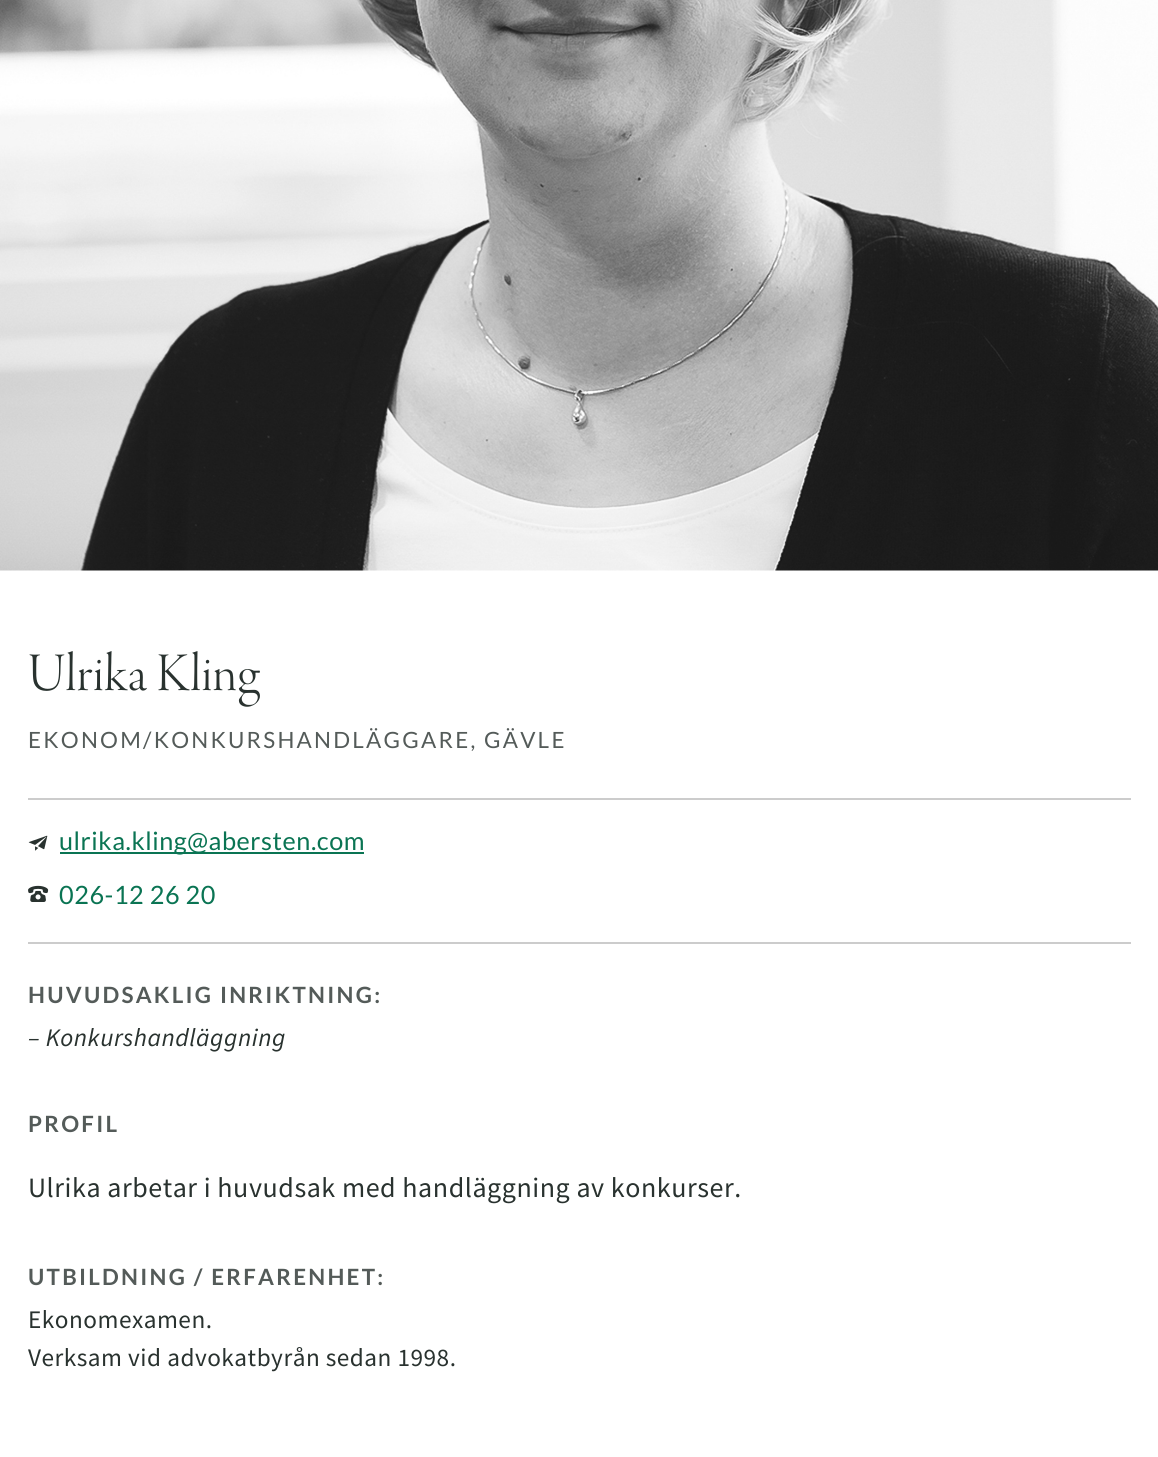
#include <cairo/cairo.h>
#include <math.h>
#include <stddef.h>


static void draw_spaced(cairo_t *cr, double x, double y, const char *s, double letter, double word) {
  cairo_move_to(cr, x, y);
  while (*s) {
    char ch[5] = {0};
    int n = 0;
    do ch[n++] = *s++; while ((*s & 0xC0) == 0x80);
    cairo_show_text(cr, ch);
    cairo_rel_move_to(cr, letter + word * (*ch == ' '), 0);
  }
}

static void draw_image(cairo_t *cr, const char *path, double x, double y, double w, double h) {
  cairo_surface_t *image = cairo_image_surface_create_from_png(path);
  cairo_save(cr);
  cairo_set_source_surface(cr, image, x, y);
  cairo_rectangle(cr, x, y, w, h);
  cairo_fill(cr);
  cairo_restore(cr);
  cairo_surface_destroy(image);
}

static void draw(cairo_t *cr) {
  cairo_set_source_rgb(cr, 1, 1, 1);
  cairo_paint(cr);
  draw_image(cr, "images/1.png", 0, 0, 1158, 571);
  cairo_set_source_rgb(cr, 204 / 255.0, 204 / 255.0, 204 / 255.0);
  cairo_rectangle(cr, 28, 798, 1103, 2);
  cairo_fill(cr);
  cairo_rectangle(cr, 28, 942, 1103, 2);
  cairo_fill(cr);
  draw_image(cr, "images/2.png", 28, 835, 20, 16);
  cairo_set_source_rgb(cr, 10 / 255.0, 116 / 255.0, 83 / 255.0);
  cairo_rectangle(cr, 60, 852, 304, 2);
  cairo_fill(cr);
  draw_image(cr, "images/3.png", 28, 885, 21, 17);
  cairo_select_font_face(cr, "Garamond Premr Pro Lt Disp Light", CAIRO_FONT_SLANT_NORMAL, CAIRO_FONT_WEIGHT_NORMAL);
  cairo_set_font_size(cr, 56);
  cairo_set_source_rgb(cr, 41 / 255.0, 50 / 255.0, 47 / 255.0);
  draw_spaced(cr, 28, 690, "Ulrika Kling", 0.55, 0);
  cairo_select_font_face(cr, "Lato", CAIRO_FONT_SLANT_NORMAL, CAIRO_FONT_WEIGHT_NORMAL);
  cairo_set_font_size(cr, 22.4);
  cairo_set_source_rgb(cr, 84 / 255.0, 91 / 255.0, 89 / 255.0);
  draw_spaced(cr, 28, 748, "EKONOM/KONKURSHANDLÄGGARE, GÄVLE", 2.25, 0);
  cairo_set_font_size(cr, 25.25);
  cairo_set_source_rgb(cr, 10 / 255.0, 116 / 255.0, 83 / 255.0);
  draw_spaced(cr, 59, 850, "ulrika.kling@abersten.com", 0.55, 0);
  draw_spaced(cr, 59, 904, "026-12 26 20", 0.55, 0);
  cairo_select_font_face(cr, "Lato", CAIRO_FONT_SLANT_NORMAL, CAIRO_FONT_WEIGHT_BOLD);
  cairo_set_font_size(cr, 22.4);
  cairo_set_source_rgb(cr, 84 / 255.0, 91 / 255.0, 89 / 255.0);
  draw_spaced(cr, 28, 1003, "HUVUDSAKLIG INRIKTNING:", 2.25, 0);
  cairo_select_font_face(cr, "Source Sans Pro", CAIRO_FONT_SLANT_ITALIC, CAIRO_FONT_WEIGHT_NORMAL);
  cairo_set_font_size(cr, 25.25);
  cairo_set_source_rgb(cr, 41 / 255.0, 50 / 255.0, 47 / 255.0);
  draw_spaced(cr, 28, 1046, "– Konkurshandläggning", 0.5, 0);
  cairo_select_font_face(cr, "Lato", CAIRO_FONT_SLANT_NORMAL, CAIRO_FONT_WEIGHT_BOLD);
  cairo_set_font_size(cr, 22.4);
  cairo_set_source_rgb(cr, 84 / 255.0, 91 / 255.0, 89 / 255.0);
  draw_spaced(cr, 28, 1132, "PROFIL", 2.25, 0);
  cairo_select_font_face(cr, "Source Sans Pro", CAIRO_FONT_SLANT_NORMAL, CAIRO_FONT_WEIGHT_NORMAL);
  cairo_set_font_size(cr, 28);
  cairo_set_source_rgb(cr, 41 / 255.0, 50 / 255.0, 47 / 255.0);
  draw_spaced(cr, 28, 1197, "Ulrika arbetar i huvudsak med handläggning av konkurser.", 0.55, 0);
  cairo_select_font_face(cr, "Lato", CAIRO_FONT_SLANT_NORMAL, CAIRO_FONT_WEIGHT_BOLD);
  cairo_set_font_size(cr, 22.4);
  cairo_set_source_rgb(cr, 84 / 255.0, 91 / 255.0, 89 / 255.0);
  draw_spaced(cr, 28, 1285, "UTBILDNING / ERFARENHET:", 2.25, 0);
  cairo_select_font_face(cr, "Source Sans Pro", CAIRO_FONT_SLANT_NORMAL, CAIRO_FONT_WEIGHT_NORMAL);
  cairo_set_font_size(cr, 25.25);
  cairo_set_source_rgb(cr, 41 / 255.0, 50 / 255.0, 47 / 255.0);
  draw_spaced(cr, 28, 1328, "Ekonomexamen.", 0.5, 0);
  draw_spaced(cr, 28, 1366, "Verksam vid advokatbyrån sedan 1998.", 0.5, 0);
}

int main(void) {
  cairo_surface_t *surface = cairo_image_surface_create(CAIRO_FORMAT_RGB24, 1158, 1457);
  cairo_t *cr = cairo_create(surface);
  cairo_font_options_t *options = cairo_font_options_create();
  cairo_font_options_set_hint_metrics(options, CAIRO_HINT_METRICS_OFF);
  cairo_font_options_set_hint_style(options, CAIRO_HINT_STYLE_NONE);
  cairo_set_font_options(cr, options);
  cairo_set_miter_limit(cr, 4);
  draw(cr);
  cairo_surface_write_to_png(surface, "out.png");
  cairo_font_options_destroy(options);
  cairo_destroy(cr);
  cairo_surface_destroy(surface);
  return 0;
}
